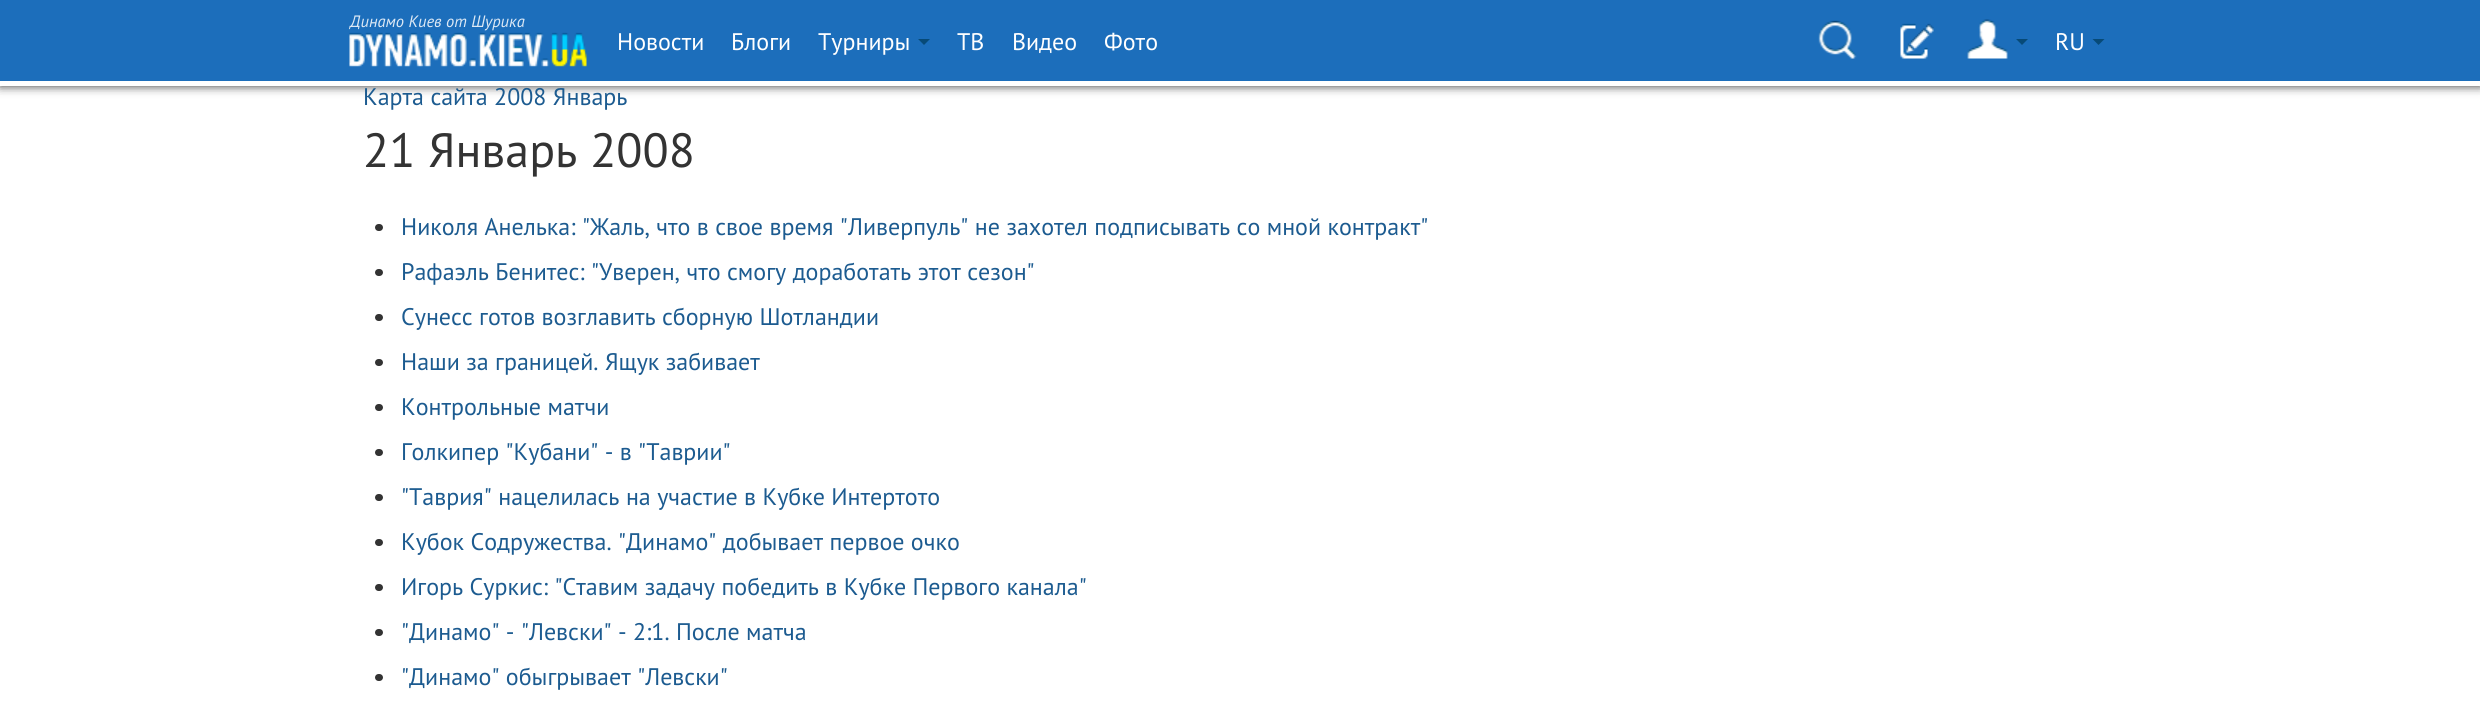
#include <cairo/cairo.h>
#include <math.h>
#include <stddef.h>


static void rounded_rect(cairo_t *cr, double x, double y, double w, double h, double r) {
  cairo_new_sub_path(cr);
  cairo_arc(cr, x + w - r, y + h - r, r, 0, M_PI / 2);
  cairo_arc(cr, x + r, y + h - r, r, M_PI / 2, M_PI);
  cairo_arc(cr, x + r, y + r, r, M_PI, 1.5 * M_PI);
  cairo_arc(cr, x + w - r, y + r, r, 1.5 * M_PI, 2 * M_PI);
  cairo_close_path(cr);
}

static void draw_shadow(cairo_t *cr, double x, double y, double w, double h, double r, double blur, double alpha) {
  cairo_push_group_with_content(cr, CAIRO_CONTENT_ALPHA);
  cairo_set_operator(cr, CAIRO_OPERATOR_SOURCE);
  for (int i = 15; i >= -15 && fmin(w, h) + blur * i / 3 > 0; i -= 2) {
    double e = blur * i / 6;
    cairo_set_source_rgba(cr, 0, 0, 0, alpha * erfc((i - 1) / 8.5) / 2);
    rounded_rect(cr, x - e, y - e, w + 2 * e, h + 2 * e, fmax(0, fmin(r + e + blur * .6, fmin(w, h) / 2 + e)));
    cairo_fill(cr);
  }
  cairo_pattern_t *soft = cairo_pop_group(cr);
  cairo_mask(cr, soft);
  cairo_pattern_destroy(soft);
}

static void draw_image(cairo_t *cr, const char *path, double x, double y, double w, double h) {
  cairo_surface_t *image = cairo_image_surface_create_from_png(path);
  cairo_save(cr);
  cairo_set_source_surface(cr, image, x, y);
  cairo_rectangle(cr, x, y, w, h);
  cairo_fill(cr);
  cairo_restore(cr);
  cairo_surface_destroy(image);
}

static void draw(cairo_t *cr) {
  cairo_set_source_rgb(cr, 1, 1, 1);
  cairo_paint(cr);
  cairo_set_source_rgb(cr, 51 / 255.0, 51 / 255.0, 51 / 255.0);
  draw_shadow(cr, 0, 0, 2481, 86, 0, 5, 1);
  cairo_set_source_rgb(cr, 28 / 255.0, 110 / 255.0, 187 / 255.0);
  cairo_rectangle(cr, 0, 0, 2480, 81);
  cairo_fill(cr);
  cairo_set_source_rgb(cr, 1, 1, 1);
  cairo_rectangle(cr, 0, 81, 2480, 5);
  cairo_fill(cr);
  draw_image(cr, "images/1.png", 349, 32, 238, 35);
  cairo_set_source_rgb(cr, 7 / 255.0, 74 / 255.0, 119 / 255.0);
  cairo_new_path(cr);
  cairo_move_to(cr, 918, 39);
  cairo_line_to(cr, 930, 39);
  cairo_line_to(cr, 924, 45);
  cairo_close_path(cr);
  cairo_fill(cr);
  draw_image(cr, "images/2.png", 1818, 20, 39, 39);
  draw_image(cr, "images/3.png", 1900, 23, 34, 36);
  draw_image(cr, "images/4.png", 1967, 19, 41, 40);
  cairo_new_path(cr);
  cairo_move_to(cr, 2016, 39);
  cairo_line_to(cr, 2028, 39);
  cairo_line_to(cr, 2022, 45);
  cairo_close_path(cr);
  cairo_fill(cr);
  cairo_new_path(cr);
  cairo_move_to(cr, 2092.5, 39);
  cairo_line_to(cr, 2104.5, 39);
  cairo_line_to(cr, 2098.5, 45);
  cairo_close_path(cr);
  cairo_fill(cr);
  cairo_set_source_rgb(cr, 51 / 255.0, 51 / 255.0, 51 / 255.0);
  rounded_rect(cr, 375, 224, 8, 7, 3.5);
  cairo_fill(cr);
  rounded_rect(cr, 375, 269, 8, 7, 3.5);
  cairo_fill(cr);
  rounded_rect(cr, 375, 314, 8, 7, 3.5);
  cairo_fill(cr);
  rounded_rect(cr, 375, 359, 8, 7, 3.5);
  cairo_fill(cr);
  rounded_rect(cr, 375, 404, 8, 7, 3.5);
  cairo_fill(cr);
  rounded_rect(cr, 375, 449, 8, 7, 3.5);
  cairo_fill(cr);
  rounded_rect(cr, 375, 494, 8, 7, 3.5);
  cairo_fill(cr);
  rounded_rect(cr, 375, 539, 8, 7, 3.5);
  cairo_fill(cr);
  rounded_rect(cr, 375, 584, 8, 7, 3.5);
  cairo_fill(cr);
  rounded_rect(cr, 375, 629, 8, 7, 3.5);
  cairo_fill(cr);
  rounded_rect(cr, 375, 674, 8, 7, 3.5);
  cairo_fill(cr);
  cairo_select_font_face(cr, "PT Sans", CAIRO_FONT_SLANT_ITALIC, CAIRO_FONT_WEIGHT_NORMAL);
  cairo_set_font_size(cr, 16.5);
  cairo_set_source_rgb(cr, 221 / 255.0, 233 / 255.0, 245 / 255.0);
  cairo_move_to(cr, 350, 27);
  cairo_show_text(cr, "Динамо Киев от Шурика");
  cairo_select_font_face(cr, "PT Sans", CAIRO_FONT_SLANT_NORMAL, CAIRO_FONT_WEIGHT_NORMAL);
  cairo_set_font_size(cr, 24);
  cairo_set_source_rgb(cr, 1, 1, 1);
  cairo_move_to(cr, 617, 50);
  cairo_show_text(cr, "Новости");
  cairo_move_to(cr, 731, 50);
  cairo_show_text(cr, "Блоги");
  cairo_move_to(cr, 818, 50);
  cairo_show_text(cr, "Турниры");
  cairo_move_to(cr, 957, 50);
  cairo_show_text(cr, "ТВ");
  cairo_move_to(cr, 1012, 50);
  cairo_show_text(cr, "Видео");
  cairo_move_to(cr, 1104, 50);
  cairo_show_text(cr, "Фото");
  cairo_move_to(cr, 2055, 50);
  cairo_show_text(cr, "RU");
  cairo_set_source_rgb(cr, 28 / 255.0, 91 / 255.0, 144 / 255.0);
  cairo_move_to(cr, 363, 105);
  cairo_show_text(cr, "Карта сайта 2008 Январь");
  cairo_set_font_size(cr, 48);
  cairo_set_source_rgb(cr, 51 / 255.0, 51 / 255.0, 51 / 255.0);
  cairo_move_to(cr, 363, 167);
  cairo_show_text(cr, "21 Январь 2008");
  cairo_set_font_size(cr, 24);
  cairo_set_source_rgb(cr, 28 / 255.0, 91 / 255.0, 144 / 255.0);
  cairo_move_to(cr, 401, 235);
  cairo_show_text(cr, "Николя Анелька: \"Жаль, что в свое время \"Ливерпуль\" не захотел подписывать со мной контракт\"");
  cairo_move_to(cr, 401, 280);
  cairo_show_text(cr, "Рафаэль Бенитес: \"Уверен, что смогу доработать этот сезон\"");
  cairo_move_to(cr, 401, 325);
  cairo_show_text(cr, "Сунесс готов возглавить сборную Шотландии");
  cairo_move_to(cr, 401, 370);
  cairo_show_text(cr, "Наши за границей. Ящук забивает");
  cairo_move_to(cr, 401, 415);
  cairo_show_text(cr, "Контрольные матчи");
  cairo_move_to(cr, 401, 460);
  cairo_show_text(cr, "Голкипер \"Кубани\" - в \"Таврии\"");
  cairo_move_to(cr, 401, 505);
  cairo_show_text(cr, "\"Таврия\" нацелилась на участие в Кубке Интертото");
  cairo_move_to(cr, 401, 550);
  cairo_show_text(cr, "Кубок Содружества. \"Динамо\" добывает первое очко");
  cairo_move_to(cr, 401, 595);
  cairo_show_text(cr, "Игорь Суркис: \"Ставим задачу победить в Кубке Первого канала\"");
  cairo_move_to(cr, 401, 640);
  cairo_show_text(cr, "\"Динамо\" - \"Левски\" - 2:1. После матча");
  cairo_move_to(cr, 401, 685);
  cairo_show_text(cr, "\"Динамо\" обыгрывает \"Левски\"");
}

int main(void) {
  cairo_surface_t *surface = cairo_image_surface_create(CAIRO_FORMAT_RGB24, 2480, 724);
  cairo_t *cr = cairo_create(surface);
  cairo_font_options_t *options = cairo_font_options_create();
  cairo_font_options_set_hint_metrics(options, CAIRO_HINT_METRICS_OFF);
  cairo_font_options_set_hint_style(options, CAIRO_HINT_STYLE_NONE);
  cairo_set_font_options(cr, options);
  cairo_set_miter_limit(cr, 4);
  draw(cr);
  cairo_surface_write_to_png(surface, "out.png");
  cairo_font_options_destroy(options);
  cairo_destroy(cr);
  cairo_surface_destroy(surface);
  return 0;
}
